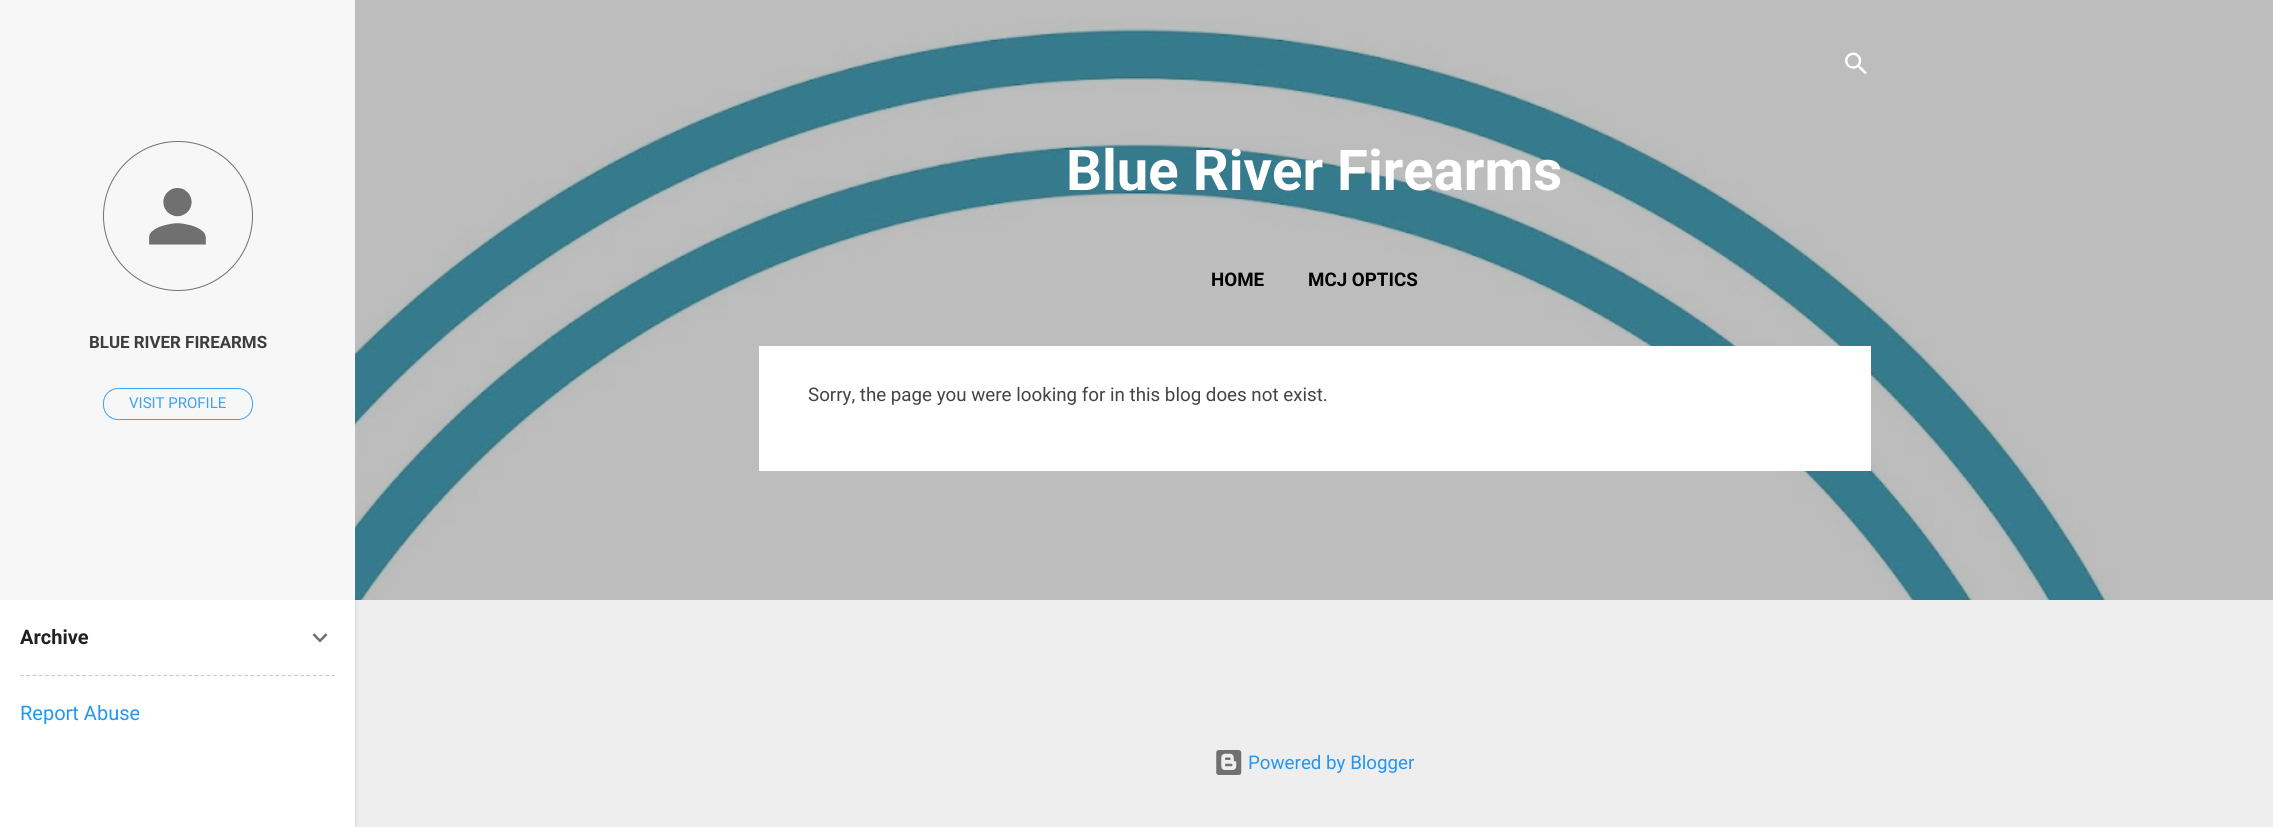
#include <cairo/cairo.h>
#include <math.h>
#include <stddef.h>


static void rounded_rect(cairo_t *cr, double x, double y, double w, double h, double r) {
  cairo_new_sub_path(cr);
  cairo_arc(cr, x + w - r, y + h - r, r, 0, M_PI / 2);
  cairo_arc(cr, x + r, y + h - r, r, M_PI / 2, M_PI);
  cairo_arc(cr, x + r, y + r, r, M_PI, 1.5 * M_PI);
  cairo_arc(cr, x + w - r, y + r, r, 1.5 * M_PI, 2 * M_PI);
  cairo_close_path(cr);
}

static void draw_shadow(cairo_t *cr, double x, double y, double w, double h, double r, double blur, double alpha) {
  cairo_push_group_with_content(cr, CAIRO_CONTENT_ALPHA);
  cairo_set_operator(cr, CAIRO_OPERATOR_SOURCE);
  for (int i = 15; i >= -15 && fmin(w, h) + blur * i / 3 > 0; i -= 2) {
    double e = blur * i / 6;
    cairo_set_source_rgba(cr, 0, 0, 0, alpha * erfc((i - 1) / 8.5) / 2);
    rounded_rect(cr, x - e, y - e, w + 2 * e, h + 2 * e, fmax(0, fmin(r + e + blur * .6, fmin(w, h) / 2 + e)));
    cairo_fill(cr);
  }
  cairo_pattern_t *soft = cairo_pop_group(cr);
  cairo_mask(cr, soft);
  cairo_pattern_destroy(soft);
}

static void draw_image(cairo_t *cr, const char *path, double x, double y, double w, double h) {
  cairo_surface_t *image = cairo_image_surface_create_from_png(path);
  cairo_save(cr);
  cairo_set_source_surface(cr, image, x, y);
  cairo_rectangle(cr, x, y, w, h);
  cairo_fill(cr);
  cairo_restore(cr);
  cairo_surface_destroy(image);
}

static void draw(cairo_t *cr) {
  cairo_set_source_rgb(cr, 238 / 255.0, 238 / 255.0, 238 / 255.0);
  cairo_paint(cr);
  draw_image(cr, "images/3.png", 355, 0, 1918, 600);
  cairo_set_source_rgb(cr, 0, 0, 0);
  draw_shadow(cr, 1, 601, 355, 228, 0, 2, 0.1);
  cairo_set_source_rgb(cr, 1, 1, 1);
  cairo_rectangle(cr, 0, 600, 355, 227);
  cairo_fill(cr);
  cairo_set_source_rgb(cr, 247 / 255.0, 247 / 255.0, 247 / 255.0);
  cairo_rectangle(cr, 0, 0, 355, 600);
  cairo_fill(cr);
  cairo_arc(cr, 178, 216, 74.5, 0, 2 * M_PI);
  cairo_set_source_rgb(cr, 112 / 255.0, 112 / 255.0, 112 / 255.0);
  cairo_set_line_width(cr, 1);
  cairo_stroke(cr);
  draw_image(cr, "images/1.png", 149, 188, 57, 57);
  rounded_rect(cr, 103.5, 388.5, 149, 31, 14.5);
  cairo_set_source_rgb(cr, 61 / 255.0, 163 / 255.0, 244 / 255.0);
  cairo_stroke(cr);
  draw_image(cr, "images/2.png", 312, 633, 16, 10);
  cairo_new_path(cr);
  cairo_move_to(cr, 20, 675.5);
  cairo_line_to(cr, 335, 675.5);
  cairo_set_source_rgb(cr, 204 / 255.0, 204 / 255.0, 204 / 255.0);
  cairo_set_line_width(cr, 1.2);
  cairo_set_dash(cr, (double[]){3.75, 2.48}, 2, 0);
  cairo_stroke(cr);
  draw_image(cr, "images/4.png", 1845, 52, 22, 22);
  cairo_set_source_rgb(cr, 1, 1, 1);
  cairo_rectangle(cr, 759, 346, 1112, 125);
  cairo_fill(cr);
  draw_image(cr, "images/5.png", 1216, 750, 26, 25);
  cairo_select_font_face(cr, "Roboto", CAIRO_FONT_SLANT_NORMAL, CAIRO_FONT_WEIGHT_BOLD);
  cairo_set_font_size(cr, 16.9);
  cairo_set_source_rgb(cr, 61 / 255.0, 61 / 255.0, 61 / 255.0);
  cairo_move_to(cr, 89, 348);
  cairo_show_text(cr, "BLUE RIVER FIREARMS");
  cairo_select_font_face(cr, "Roboto", CAIRO_FONT_SLANT_NORMAL, CAIRO_FONT_WEIGHT_NORMAL);
  cairo_set_font_size(cr, 15);
  cairo_set_source_rgb(cr, 61 / 255.0, 163 / 255.0, 244 / 255.0);
  cairo_move_to(cr, 129, 408);
  cairo_show_text(cr, "VISIT PROFILE");
  cairo_select_font_face(cr, "Roboto", CAIRO_FONT_SLANT_NORMAL, CAIRO_FONT_WEIGHT_BOLD);
  cairo_set_font_size(cr, 20);
  cairo_set_source_rgb(cr, 33 / 255.0, 33 / 255.0, 33 / 255.0);
  cairo_move_to(cr, 20, 644);
  cairo_show_text(cr, "Archive");
  cairo_select_font_face(cr, "Roboto", CAIRO_FONT_SLANT_NORMAL, CAIRO_FONT_WEIGHT_NORMAL);
  cairo_set_source_rgb(cr, 33 / 255.0, 150 / 255.0, 243 / 255.0);
  cairo_move_to(cr, 20, 720);
  cairo_show_text(cr, "Report Abuse");
  cairo_select_font_face(cr, "Roboto", CAIRO_FONT_SLANT_NORMAL, CAIRO_FONT_WEIGHT_BOLD);
  cairo_set_font_size(cr, 56.25);
  cairo_set_source_rgb(cr, 1, 1, 1);
  cairo_move_to(cr, 1066, 190);
  cairo_show_text(cr, "Blue River Firearms");
  cairo_set_font_size(cr, 18.75);
  cairo_set_source_rgb(cr, 0, 0, 0);
  cairo_move_to(cr, 1211, 286);
  cairo_show_text(cr, "HOME");
  cairo_move_to(cr, 1308, 286);
  cairo_show_text(cr, "MCJ OPTICS");
  cairo_select_font_face(cr, "Roboto", CAIRO_FONT_SLANT_NORMAL, CAIRO_FONT_WEIGHT_NORMAL);
  cairo_set_source_rgb(cr, 68 / 255.0, 68 / 255.0, 68 / 255.0);
  cairo_move_to(cr, 808, 401);
  cairo_show_text(cr, "Sorry, the page you were looking for in this blog does not exist.");
  cairo_set_source_rgb(cr, 33 / 255.0, 150 / 255.0, 243 / 255.0);
  cairo_move_to(cr, 1248, 769);
  cairo_show_text(cr, "Powered by Blogger");
}

int main(void) {
  cairo_surface_t *surface = cairo_image_surface_create(CAIRO_FORMAT_RGB24, 2273, 827);
  cairo_t *cr = cairo_create(surface);
  cairo_font_options_t *options = cairo_font_options_create();
  cairo_font_options_set_hint_metrics(options, CAIRO_HINT_METRICS_OFF);
  cairo_font_options_set_hint_style(options, CAIRO_HINT_STYLE_NONE);
  cairo_set_font_options(cr, options);
  cairo_set_miter_limit(cr, 4);
  draw(cr);
  cairo_surface_write_to_png(surface, "out.png");
  cairo_font_options_destroy(options);
  cairo_destroy(cr);
  cairo_surface_destroy(surface);
  return 0;
}
